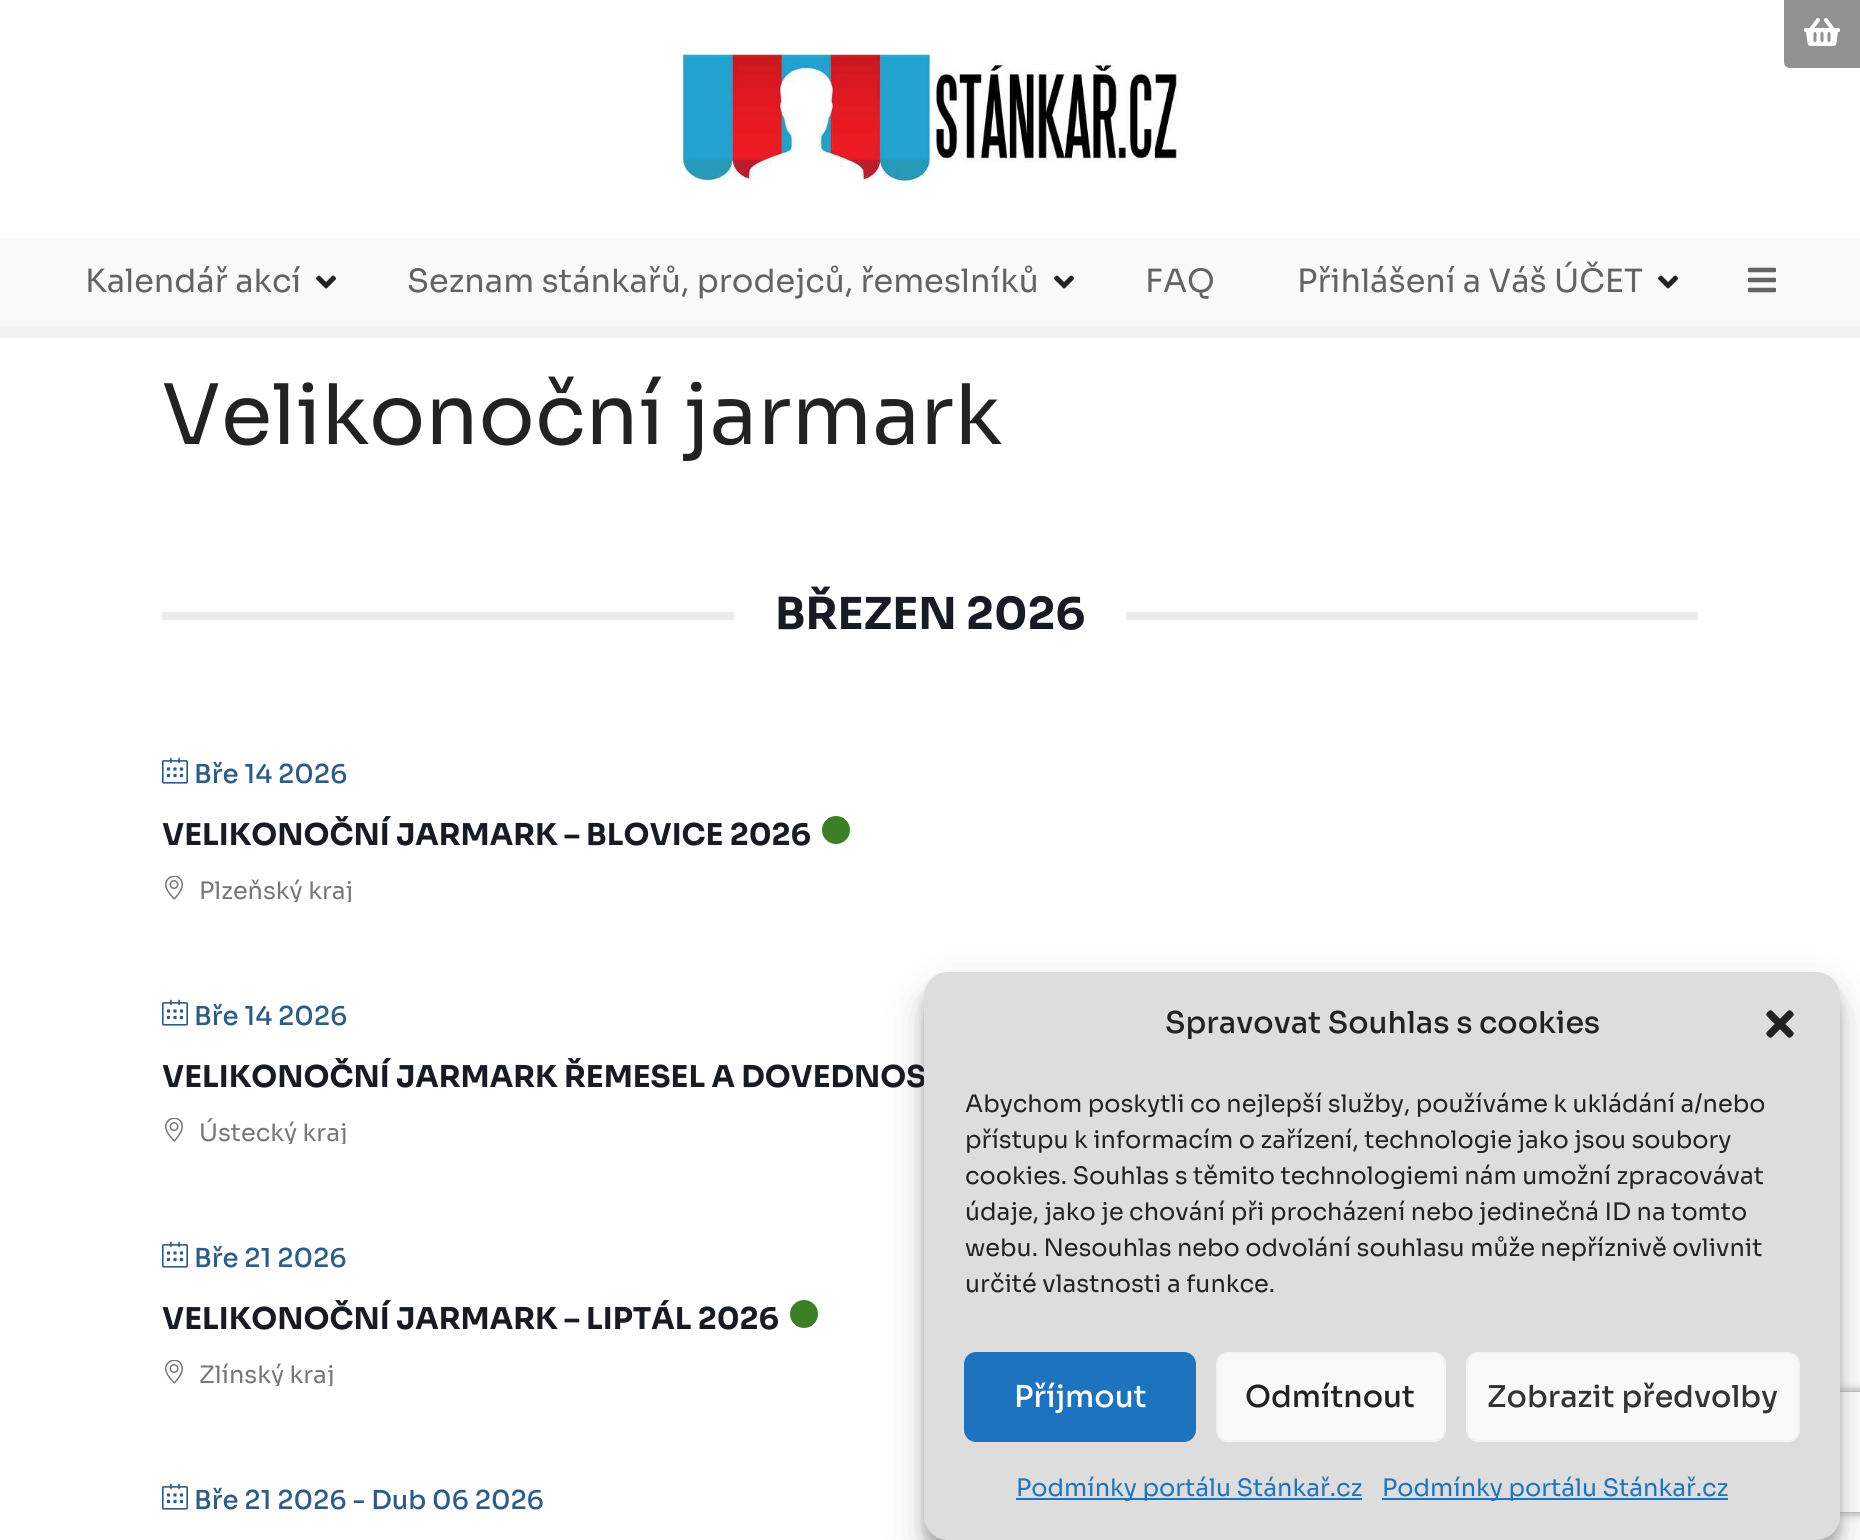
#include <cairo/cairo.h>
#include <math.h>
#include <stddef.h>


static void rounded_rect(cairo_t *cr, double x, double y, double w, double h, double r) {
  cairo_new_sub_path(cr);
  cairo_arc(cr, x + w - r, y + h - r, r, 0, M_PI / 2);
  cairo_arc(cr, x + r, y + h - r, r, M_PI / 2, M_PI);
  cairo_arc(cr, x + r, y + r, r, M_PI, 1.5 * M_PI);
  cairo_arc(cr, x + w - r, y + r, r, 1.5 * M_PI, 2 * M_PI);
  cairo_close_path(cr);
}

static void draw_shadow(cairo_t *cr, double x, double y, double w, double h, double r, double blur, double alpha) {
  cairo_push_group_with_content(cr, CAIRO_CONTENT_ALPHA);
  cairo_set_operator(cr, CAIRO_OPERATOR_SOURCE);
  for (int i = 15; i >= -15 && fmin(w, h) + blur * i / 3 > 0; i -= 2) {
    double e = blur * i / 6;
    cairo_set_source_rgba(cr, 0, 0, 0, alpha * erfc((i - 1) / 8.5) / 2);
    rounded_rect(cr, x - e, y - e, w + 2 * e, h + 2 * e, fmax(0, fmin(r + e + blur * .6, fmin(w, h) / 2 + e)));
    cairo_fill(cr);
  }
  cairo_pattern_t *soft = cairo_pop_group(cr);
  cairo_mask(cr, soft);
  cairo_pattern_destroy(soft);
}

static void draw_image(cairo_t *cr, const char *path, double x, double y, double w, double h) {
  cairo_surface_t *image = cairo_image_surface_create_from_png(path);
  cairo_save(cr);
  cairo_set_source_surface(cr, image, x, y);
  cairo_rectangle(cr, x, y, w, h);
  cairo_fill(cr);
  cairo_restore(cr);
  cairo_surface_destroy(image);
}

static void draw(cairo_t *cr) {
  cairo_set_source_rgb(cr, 1, 1, 1);
  cairo_paint(cr);
  draw_image(cr, "images/1.png", 680, 54, 497, 130);
  cairo_set_source_rgb(cr, 145 / 255.0, 145 / 255.0, 145 / 255.0);
  cairo_new_path(cr);
  cairo_move_to(cr, 1784, 0);
  cairo_line_to(cr, 1860, 0);
  cairo_line_to(cr, 1860, 68);
  cairo_line_to(cr, 1790, 68);
  cairo_curve_to(cr, 1786.5, 68, 1784, 65.5, 1784, 62);
  cairo_close_path(cr);
  cairo_fill(cr);
  draw_image(cr, "images/2.png", 1804, 18, 36, 28);
  cairo_set_source_rgb(cr, 249 / 255.0, 249 / 255.0, 249 / 255.0);
  cairo_rectangle(cr, 0, 238, 1860, 88);
  cairo_fill(cr);
  draw_image(cr, "images/3.png", 316, 275, 20, 14);
  draw_image(cr, "images/3.png", 1054, 275, 20, 14);
  draw_image(cr, "images/3.png", 1658, 275, 20, 14);
  draw_image(cr, "images/4.png", 1748, 267, 28, 26);
  cairo_set_source_rgb(cr, 242 / 255.0, 242 / 255.0, 242 / 255.0);
  cairo_rectangle(cr, 0, 326, 1860, 12);
  cairo_fill(cr);
  cairo_set_source_rgb(cr, 235 / 255.0, 235 / 255.0, 235 / 255.0);
  cairo_rectangle(cr, 162, 612, 572, 8);
  cairo_fill(cr);
  cairo_rectangle(cr, 1126, 612, 572, 8);
  cairo_fill(cr);
  draw_image(cr, "images/5.png", 162, 757, 26, 27);
  cairo_set_source_rgb(cr, 61 / 255.0, 127 / 255.0, 39 / 255.0);
  cairo_arc(cr, 836, 830, 14, 0, 2 * M_PI);
  cairo_fill(cr);
  draw_image(cr, "images/6.png", 165, 876, 18, 24);
  draw_image(cr, "images/5.png", 162, 999, 26, 27);
  draw_image(cr, "images/6.png", 165, 1118, 18, 24);
  draw_image(cr, "images/5.png", 162, 1241, 26, 27);
  cairo_arc(cr, 804, 1314, 14, 0, 2 * M_PI);
  cairo_fill(cr);
  draw_image(cr, "images/6.png", 165, 1360, 18, 24);
  draw_image(cr, "images/5.png", 162, 1483, 26, 27);
  cairo_set_source_rgb(cr, 0, 0, 0);
  draw_shadow(cr, 924, 984, 916, 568, 24, 6, 0.23);
  draw_shadow(cr, 924, 992, 916, 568, 24, 20, 0.19);
  cairo_save(cr);
  cairo_set_fill_rule(cr, CAIRO_FILL_RULE_EVEN_ODD);
  cairo_new_path(cr);
  cairo_move_to(cr, 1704, 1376);
  cairo_line_to(cr, 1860, 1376);
  cairo_line_to(cr, 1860, 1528);
  cairo_line_to(cr, 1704, 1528);
  cairo_close_path(cr);
  cairo_move_to(cr, 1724, 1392);
  cairo_line_to(cr, 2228, 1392);
  cairo_curve_to(cr, 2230, 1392, 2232, 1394, 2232, 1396);
  cairo_line_to(cr, 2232, 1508);
  cairo_curve_to(cr, 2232, 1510, 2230, 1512, 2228, 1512);
  cairo_line_to(cr, 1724, 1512);
  cairo_curve_to(cr, 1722, 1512, 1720, 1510, 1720, 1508);
  cairo_line_to(cr, 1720, 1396);
  cairo_curve_to(cr, 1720, 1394, 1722, 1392, 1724, 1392);
  cairo_close_path(cr);
  cairo_clip(cr);
  cairo_set_source_rgb(cr, 128 / 255.0, 128 / 255.0, 128 / 255.0);
  draw_shadow(cr, 1720, 1392, 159, 120, 4, 5, 1);
  cairo_restore(cr);
  cairo_select_font_face(cr, "Sora", CAIRO_FONT_SLANT_NORMAL, CAIRO_FONT_WEIGHT_NORMAL);
  cairo_set_font_size(cr, 32);
  cairo_set_source_rgb(cr, 99 / 255.0, 99 / 255.0, 99 / 255.0);
  cairo_move_to(cr, 85, 292);
  cairo_show_text(cr, "Kalendář akcí");
  cairo_move_to(cr, 407, 292);
  cairo_show_text(cr, "Seznam stánkařů, prodejců, řemeslníků");
  cairo_move_to(cr, 1145, 292);
  cairo_show_text(cr, "FAQ");
  cairo_move_to(cr, 1297, 292);
  cairo_show_text(cr, "Přihlášení a Váš ÚČET");
  cairo_set_font_size(cr, 83.25);
  cairo_set_source_rgb(cr, 34 / 255.0, 34 / 255.0, 34 / 255.0);
  cairo_move_to(cr, 162, 444);
  cairo_show_text(cr, "Velikonoční jarmark");
  cairo_select_font_face(cr, "Sora", CAIRO_FONT_SLANT_NORMAL, CAIRO_FONT_WEIGHT_BOLD);
  cairo_set_font_size(cr, 44);
  cairo_set_source_rgb(cr, 23 / 255.0, 28 / 255.0, 36 / 255.0);
  cairo_move_to(cr, 775, 629);
  cairo_show_text(cr, "BŘEZEN 2026");
  cairo_select_font_face(cr, "Sora Medium", CAIRO_FONT_SLANT_NORMAL, CAIRO_FONT_WEIGHT_NORMAL);
  cairo_set_font_size(cr, 26);
  cairo_set_source_rgb(cr, 45 / 255.0, 92 / 255.0, 136 / 255.0);
  cairo_move_to(cr, 194, 783);
  cairo_show_text(cr, "Bře 14 2026");
  cairo_select_font_face(cr, "Sora", CAIRO_FONT_SLANT_NORMAL, CAIRO_FONT_WEIGHT_BOLD);
  cairo_set_font_size(cr, 30);
  cairo_set_source_rgb(cr, 23 / 255.0, 28 / 255.0, 36 / 255.0);
  cairo_move_to(cr, 162, 845);
  cairo_show_text(cr, "VELIKONOČNÍ JARMARK – BLOVICE 2026");
  cairo_save(cr);
  cairo_rectangle(cr, 162, 876, 1536, 26);
  cairo_clip(cr);
  cairo_select_font_face(cr, "Sora", CAIRO_FONT_SLANT_NORMAL, CAIRO_FONT_WEIGHT_NORMAL);
  cairo_set_font_size(cr, 24);
  cairo_set_source_rgb(cr, 119 / 255.0, 119 / 255.0, 119 / 255.0);
  cairo_move_to(cr, 199, 899);
  cairo_show_text(cr, "Plzeňský kraj");
  cairo_restore(cr);
  cairo_select_font_face(cr, "Sora Medium", CAIRO_FONT_SLANT_NORMAL, CAIRO_FONT_WEIGHT_NORMAL);
  cairo_set_font_size(cr, 26);
  cairo_set_source_rgb(cr, 45 / 255.0, 92 / 255.0, 136 / 255.0);
  cairo_move_to(cr, 194, 1025);
  cairo_show_text(cr, "Bře 14 2026");
  cairo_select_font_face(cr, "Sora", CAIRO_FONT_SLANT_NORMAL, CAIRO_FONT_WEIGHT_BOLD);
  cairo_set_font_size(cr, 30);
  cairo_set_source_rgb(cr, 23 / 255.0, 28 / 255.0, 36 / 255.0);
  cairo_move_to(cr, 162, 1087);
  cairo_show_text(cr, "VELIKONOČNÍ JARMARK ŘEMESEL A DOVEDNOS");
  cairo_save(cr);
  cairo_rectangle(cr, 162, 1118, 1536, 26);
  cairo_clip(cr);
  cairo_select_font_face(cr, "Sora", CAIRO_FONT_SLANT_NORMAL, CAIRO_FONT_WEIGHT_NORMAL);
  cairo_set_font_size(cr, 24);
  cairo_set_source_rgb(cr, 119 / 255.0, 119 / 255.0, 119 / 255.0);
  cairo_move_to(cr, 199, 1141);
  cairo_show_text(cr, "Ústecký kraj");
  cairo_restore(cr);
  cairo_select_font_face(cr, "Sora Medium", CAIRO_FONT_SLANT_NORMAL, CAIRO_FONT_WEIGHT_NORMAL);
  cairo_set_font_size(cr, 26);
  cairo_set_source_rgb(cr, 45 / 255.0, 92 / 255.0, 136 / 255.0);
  cairo_move_to(cr, 194, 1267);
  cairo_show_text(cr, "Bře 21 2026");
  cairo_select_font_face(cr, "Sora", CAIRO_FONT_SLANT_NORMAL, CAIRO_FONT_WEIGHT_BOLD);
  cairo_set_font_size(cr, 30);
  cairo_set_source_rgb(cr, 23 / 255.0, 28 / 255.0, 36 / 255.0);
  cairo_move_to(cr, 162, 1329);
  cairo_show_text(cr, "VELIKONOČNÍ JARMARK – LIPTÁL 2026");
  cairo_save(cr);
  cairo_rectangle(cr, 162, 1360, 1536, 26);
  cairo_clip(cr);
  cairo_select_font_face(cr, "Sora", CAIRO_FONT_SLANT_NORMAL, CAIRO_FONT_WEIGHT_NORMAL);
  cairo_set_font_size(cr, 24);
  cairo_set_source_rgb(cr, 119 / 255.0, 119 / 255.0, 119 / 255.0);
  cairo_move_to(cr, 199, 1383);
  cairo_show_text(cr, "Zlínský kraj");
  cairo_restore(cr);
  cairo_select_font_face(cr, "Sora Medium", CAIRO_FONT_SLANT_NORMAL, CAIRO_FONT_WEIGHT_NORMAL);
  cairo_set_font_size(cr, 26);
  cairo_set_source_rgb(cr, 45 / 255.0, 92 / 255.0, 136 / 255.0);
  cairo_move_to(cr, 194, 1509);
  cairo_show_text(cr, "Bře 21 2026 - Dub 06 2026");
  cairo_set_source_rgb(cr, 221 / 255.0, 221 / 255.0, 221 / 255.0);
  rounded_rect(cr, 924, 972, 916, 568, 24);
  cairo_fill(cr);
  cairo_set_font_size(cr, 30);
  cairo_set_source_rgb(cr, 34 / 255.0, 34 / 255.0, 34 / 255.0);
  cairo_move_to(cr, 1165, 1033);
  cairo_show_text(cr, "Spravovat Souhlas s cookies");
  draw_image(cr, "images/7.png", 1766, 1010, 28, 28);
  cairo_select_font_face(cr, "Sora", CAIRO_FONT_SLANT_NORMAL, CAIRO_FONT_WEIGHT_NORMAL);
  cairo_set_font_size(cr, 24);
  cairo_move_to(cr, 965, 1112);
  cairo_show_text(cr, "Abychom poskytli co nejlepší služby, používáme k ukládání a/nebo");
  cairo_move_to(cr, 965, 1148);
  cairo_show_text(cr, "přístupu k informacím o zařízení, technologie jako jsou soubory");
  cairo_move_to(cr, 965, 1184);
  cairo_show_text(cr, "cookies. Souhlas s těmito technologiemi nám umožní zpracovávat");
  cairo_move_to(cr, 965, 1220);
  cairo_show_text(cr, "údaje, jako je chování při procházení nebo jedinečná ID na tomto");
  cairo_move_to(cr, 965, 1256);
  cairo_show_text(cr, "webu. Nesouhlas nebo odvolání souhlasu může nepříznivě ovlivnit");
  cairo_move_to(cr, 965, 1292);
  cairo_show_text(cr, "určité vlastnosti a funkce.");
  cairo_set_source_rgb(cr, 30 / 255.0, 115 / 255.0, 190 / 255.0);
  rounded_rect(cr, 965, 1353, 230, 88, 11);
  cairo_fill_preserve(cr);
  cairo_stroke(cr);
  cairo_select_font_face(cr, "Sora Medium", CAIRO_FONT_SLANT_NORMAL, CAIRO_FONT_WEIGHT_NORMAL);
  cairo_set_font_size(cr, 30);
  cairo_set_source_rgb(cr, 1, 1, 1);
  cairo_move_to(cr, 1014, 1407);
  cairo_show_text(cr, "Příjmout");
  cairo_set_source_rgb(cr, 249 / 255.0, 249 / 255.0, 249 / 255.0);
  rounded_rect(cr, 1217, 1353, 228, 88, 11);
  cairo_fill_preserve(cr);
  cairo_set_source_rgb(cr, 242 / 255.0, 242 / 255.0, 242 / 255.0);
  cairo_stroke(cr);
  cairo_set_source_rgb(cr, 34 / 255.0, 34 / 255.0, 34 / 255.0);
  cairo_move_to(cr, 1245, 1407);
  cairo_show_text(cr, "Odmítnout");
  cairo_set_source_rgb(cr, 249 / 255.0, 249 / 255.0, 249 / 255.0);
  rounded_rect(cr, 1467, 1353, 332, 88, 11);
  cairo_fill_preserve(cr);
  cairo_set_source_rgb(cr, 242 / 255.0, 242 / 255.0, 242 / 255.0);
  cairo_stroke(cr);
  cairo_set_source_rgb(cr, 51 / 255.0, 51 / 255.0, 51 / 255.0);
  cairo_move_to(cr, 1487, 1407);
  cairo_show_text(cr, "Zobrazit předvolby");
  cairo_set_source_rgb(cr, 30 / 255.0, 115 / 255.0, 190 / 255.0);
  cairo_rectangle(cr, 1016, 1498, 346, 2);
  cairo_fill(cr);
  cairo_select_font_face(cr, "Sora", CAIRO_FONT_SLANT_NORMAL, CAIRO_FONT_WEIGHT_NORMAL);
  cairo_set_font_size(cr, 24);
  cairo_move_to(cr, 1016, 1496);
  cairo_show_text(cr, "Podmínky portálu Stánkař.cz");
  cairo_rectangle(cr, 1382, 1498, 346, 2);
  cairo_fill(cr);
  cairo_move_to(cr, 1382, 1496);
  cairo_show_text(cr, "Podmínky portálu Stánkař.cz");
}

int main(void) {
  cairo_surface_t *surface = cairo_image_surface_create(CAIRO_FORMAT_RGB24, 1860, 1540);
  cairo_t *cr = cairo_create(surface);
  cairo_font_options_t *options = cairo_font_options_create();
  cairo_font_options_set_hint_metrics(options, CAIRO_HINT_METRICS_OFF);
  cairo_font_options_set_hint_style(options, CAIRO_HINT_STYLE_NONE);
  cairo_set_font_options(cr, options);
  cairo_set_miter_limit(cr, 4);
  draw(cr);
  cairo_surface_write_to_png(surface, "out.png");
  cairo_font_options_destroy(options);
  cairo_destroy(cr);
  cairo_surface_destroy(surface);
  return 0;
}
